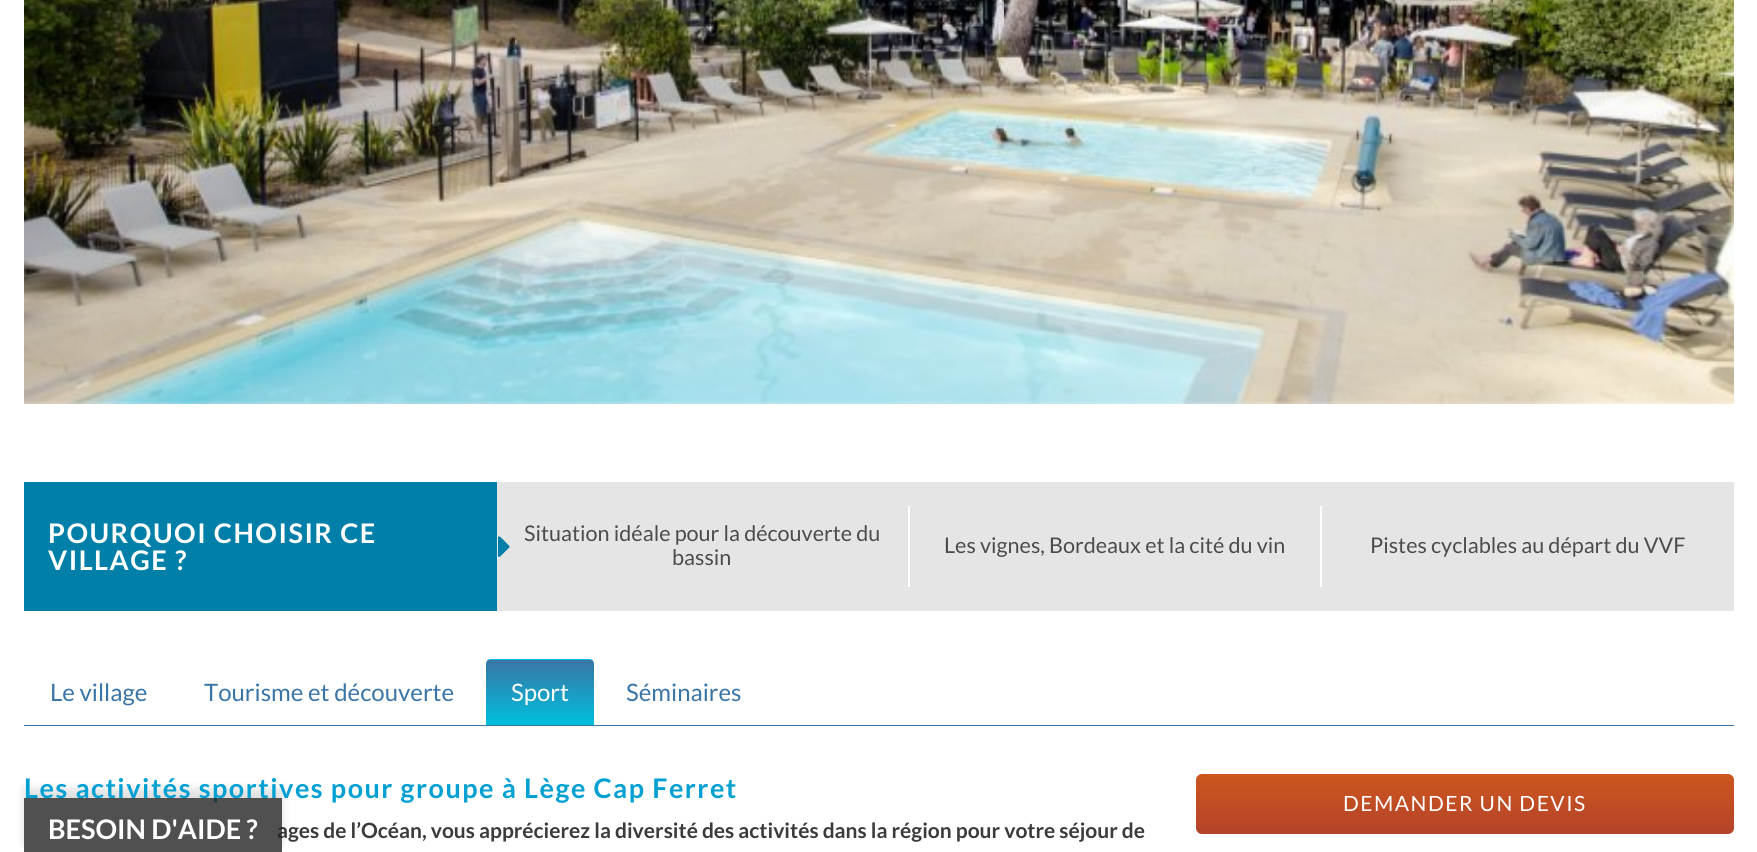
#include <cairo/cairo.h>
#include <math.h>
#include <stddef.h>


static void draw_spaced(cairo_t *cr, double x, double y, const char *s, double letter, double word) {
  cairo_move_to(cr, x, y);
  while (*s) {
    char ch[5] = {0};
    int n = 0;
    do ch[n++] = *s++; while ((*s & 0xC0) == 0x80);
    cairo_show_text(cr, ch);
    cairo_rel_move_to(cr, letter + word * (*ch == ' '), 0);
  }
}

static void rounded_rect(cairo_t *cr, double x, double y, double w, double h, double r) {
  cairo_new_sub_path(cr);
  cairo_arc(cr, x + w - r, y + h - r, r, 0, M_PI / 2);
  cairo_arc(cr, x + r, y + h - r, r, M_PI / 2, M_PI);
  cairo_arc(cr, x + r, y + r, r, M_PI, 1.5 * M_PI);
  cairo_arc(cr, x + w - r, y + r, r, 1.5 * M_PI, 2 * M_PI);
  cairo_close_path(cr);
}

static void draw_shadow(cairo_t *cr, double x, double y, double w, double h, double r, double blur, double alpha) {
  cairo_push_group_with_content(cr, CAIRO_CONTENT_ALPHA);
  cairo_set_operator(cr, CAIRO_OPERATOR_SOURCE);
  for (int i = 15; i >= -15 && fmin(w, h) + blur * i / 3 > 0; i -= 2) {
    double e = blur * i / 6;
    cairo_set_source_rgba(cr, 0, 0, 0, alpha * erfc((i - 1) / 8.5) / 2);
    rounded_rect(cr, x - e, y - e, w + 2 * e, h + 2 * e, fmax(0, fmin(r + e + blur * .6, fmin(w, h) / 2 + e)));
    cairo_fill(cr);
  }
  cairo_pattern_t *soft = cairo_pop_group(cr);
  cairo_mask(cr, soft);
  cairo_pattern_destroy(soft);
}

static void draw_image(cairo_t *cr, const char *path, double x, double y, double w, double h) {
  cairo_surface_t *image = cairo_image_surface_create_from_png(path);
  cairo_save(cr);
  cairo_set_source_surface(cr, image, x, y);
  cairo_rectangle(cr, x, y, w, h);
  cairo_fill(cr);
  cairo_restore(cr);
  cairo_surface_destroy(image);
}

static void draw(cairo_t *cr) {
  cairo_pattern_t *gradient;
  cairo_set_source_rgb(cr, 1, 1, 1);
  cairo_paint(cr);
  draw_image(cr, "images/1.png", 24, 0, 1710, 404);
  cairo_set_source_rgb(cr, 229 / 255.0, 229 / 255.0, 229 / 255.0);
  cairo_rectangle(cr, 497, 482, 1237, 129);
  cairo_fill(cr);
  cairo_set_source_rgb(cr, 0, 128 / 255.0, 169 / 255.0);
  cairo_rectangle(cr, 24, 482, 473, 129);
  cairo_fill(cr);
  draw_image(cr, "images/2.png", 498, 536, 12, 21);
  cairo_set_source_rgb(cr, 1, 1, 1);
  cairo_rectangle(cr, 908, 506, 2, 81);
  cairo_fill(cr);
  cairo_rectangle(cr, 1320, 506, 2, 81);
  cairo_fill(cr);
  cairo_set_source_rgb(cr, 57 / 255.0, 117 / 255.0, 166 / 255.0);
  cairo_rectangle(cr, 24, 725, 1710, 1);
  cairo_fill(cr);
  cairo_save(cr);
  cairo_new_path(cr);
  cairo_move_to(cr, 491, 659);
  cairo_line_to(cr, 589, 659);
  cairo_curve_to(cr, 592, 659, 594, 661, 594, 664);
  cairo_line_to(cr, 594, 726);
  cairo_line_to(cr, 486, 726);
  cairo_line_to(cr, 486, 664);
  cairo_curve_to(cr, 486, 661, 488, 659, 491, 659);
  cairo_close_path(cr);
  cairo_clip(cr);
  gradient = cairo_pattern_create_linear(540, 596, 540, 660);
  cairo_pattern_add_color_stop_rgba(gradient, 0, 57 / 255.0, 117 / 255.0, 166 / 255.0, 1);
  cairo_pattern_add_color_stop_rgba(gradient, 1, 0, 192 / 255.0, 221 / 255.0, 1);
  cairo_set_source(cr, gradient);
  cairo_pattern_destroy(gradient);
  cairo_rectangle(cr, 486, 659, 108, 1);
  cairo_fill(cr);
  gradient = cairo_pattern_create_linear(540, 660, 540, 725);
  cairo_pattern_add_color_stop_rgba(gradient, 0, 57 / 255.0, 117 / 255.0, 166 / 255.0, 1);
  cairo_pattern_add_color_stop_rgba(gradient, 1, 0, 192 / 255.0, 221 / 255.0, 1);
  cairo_set_source(cr, gradient);
  cairo_pattern_destroy(gradient);
  cairo_rectangle(cr, 486, 660, 108, 65);
  cairo_fill(cr);
  cairo_restore(cr);
  gradient = cairo_pattern_create_linear(1465, 774, 1465, 834);
  cairo_pattern_add_color_stop_rgba(gradient, 0, 204 / 255.0, 86 / 255.0, 28 / 255.0, 1);
  cairo_pattern_add_color_stop_rgba(gradient, 1, 181 / 255.0, 67 / 255.0, 43 / 255.0, 1);
  cairo_set_source(cr, gradient);
  cairo_pattern_destroy(gradient);
  rounded_rect(cr, 1196, 774, 538, 60, 6);
  cairo_fill(cr);
  cairo_save(cr);
  cairo_set_fill_rule(cr, CAIRO_FILL_RULE_EVEN_ODD);
  cairo_new_path(cr);
  cairo_move_to(cr, 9, 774);
  cairo_line_to(cr, 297, 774);
  cairo_line_to(cr, 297, 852);
  cairo_line_to(cr, 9, 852);
  cairo_close_path(cr);
  cairo_move_to(cr, 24, 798);
  cairo_line_to(cr, 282, 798);
  cairo_line_to(cr, 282, 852);
  cairo_line_to(cr, 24, 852);
  cairo_close_path(cr);
  cairo_clip(cr);
  cairo_set_source_rgb(cr, 37 / 255.0, 37 / 255.0, 37 / 255.0);
  draw_shadow(cr, 24, 789, 258, 54, 0, 4.5, 0.15);
  cairo_restore(cr);
  cairo_select_font_face(cr, "Lato", CAIRO_FONT_SLANT_NORMAL, CAIRO_FONT_WEIGHT_BOLD);
  cairo_set_font_size(cr, 27);
  cairo_set_source_rgb(cr, 1, 1, 1);
  draw_spaced(cr, 48, 543, "POURQUOI CHOISIR CE", 1.5, 0);
  draw_spaced(cr, 48, 570, "VILLAGE ?", 1.5, 0);
  cairo_select_font_face(cr, "Lato", CAIRO_FONT_SLANT_NORMAL, CAIRO_FONT_WEIGHT_NORMAL);
  cairo_set_font_size(cr, 21.6);
  cairo_set_source_rgb(cr, 76 / 255.0, 76 / 255.0, 76 / 255.0);
  cairo_move_to(cr, 524, 541);
  cairo_show_text(cr, "Situation idéale pour la découverte du");
  cairo_move_to(cr, 672, 565);
  cairo_show_text(cr, "bassin");
  cairo_move_to(cr, 944, 553);
  cairo_show_text(cr, "Les vignes, Bordeaux et la cité du vin");
  cairo_move_to(cr, 1370, 553);
  cairo_show_text(cr, "Pistes cyclables au départ du VVF");
  cairo_set_font_size(cr, 24);
  cairo_set_source_rgb(cr, 57 / 255.0, 117 / 255.0, 166 / 255.0);
  cairo_move_to(cr, 50, 701);
  cairo_show_text(cr, "Le village");
  cairo_move_to(cr, 204, 701);
  cairo_show_text(cr, "Tourisme et découverte");
  cairo_set_source_rgb(cr, 1, 1, 1);
  cairo_move_to(cr, 511, 701);
  cairo_show_text(cr, "Sport");
  cairo_set_source_rgb(cr, 57 / 255.0, 117 / 255.0, 166 / 255.0);
  cairo_move_to(cr, 626, 701);
  cairo_show_text(cr, "Séminaires");
  cairo_select_font_face(cr, "Lato", CAIRO_FONT_SLANT_NORMAL, CAIRO_FONT_WEIGHT_BOLD);
  cairo_set_font_size(cr, 27);
  cairo_set_source_rgb(cr, 0, 160 / 255.0, 211 / 255.0);
  draw_spaced(cr, 24, 798, "Les activités sportives pour groupe à Lège Cap Ferret", 1.5, 0);
  cairo_set_font_size(cr, 21);
  cairo_set_source_rgb(cr, 59 / 255.0, 59 / 255.0, 59 / 255.0);
  cairo_move_to(cr, 277, 838);
  cairo_show_text(cr, "ages de l’Océan, vous apprécierez la diversité des activités dans la région pour votre séjour de");
  cairo_select_font_face(cr, "Lato", CAIRO_FONT_SLANT_NORMAL, CAIRO_FONT_WEIGHT_NORMAL);
  cairo_set_source_rgb(cr, 1, 1, 1);
  draw_spaced(cr, 1343, 811, "DEMANDER UN DEVIS", 1.5, 0);
  cairo_set_source_rgba(cr, 37 / 255.0, 37 / 255.0, 37 / 255.0, 0.8);
  cairo_rectangle(cr, 24, 798, 258, 54);
  cairo_fill(cr);
  cairo_select_font_face(cr, "Lato", CAIRO_FONT_SLANT_NORMAL, CAIRO_FONT_WEIGHT_BOLD);
  cairo_set_font_size(cr, 27);
  cairo_set_source_rgb(cr, 1, 1, 1);
  cairo_move_to(cr, 48, 839);
  cairo_show_text(cr, "BESOIN D'AIDE ?");
}

int main(void) {
  cairo_surface_t *surface = cairo_image_surface_create(CAIRO_FORMAT_RGB24, 1757, 852);
  cairo_t *cr = cairo_create(surface);
  cairo_font_options_t *options = cairo_font_options_create();
  cairo_font_options_set_hint_metrics(options, CAIRO_HINT_METRICS_OFF);
  cairo_font_options_set_hint_style(options, CAIRO_HINT_STYLE_NONE);
  cairo_set_font_options(cr, options);
  cairo_set_miter_limit(cr, 4);
  draw(cr);
  cairo_surface_write_to_png(surface, "out.png");
  cairo_font_options_destroy(options);
  cairo_destroy(cr);
  cairo_surface_destroy(surface);
  return 0;
}
